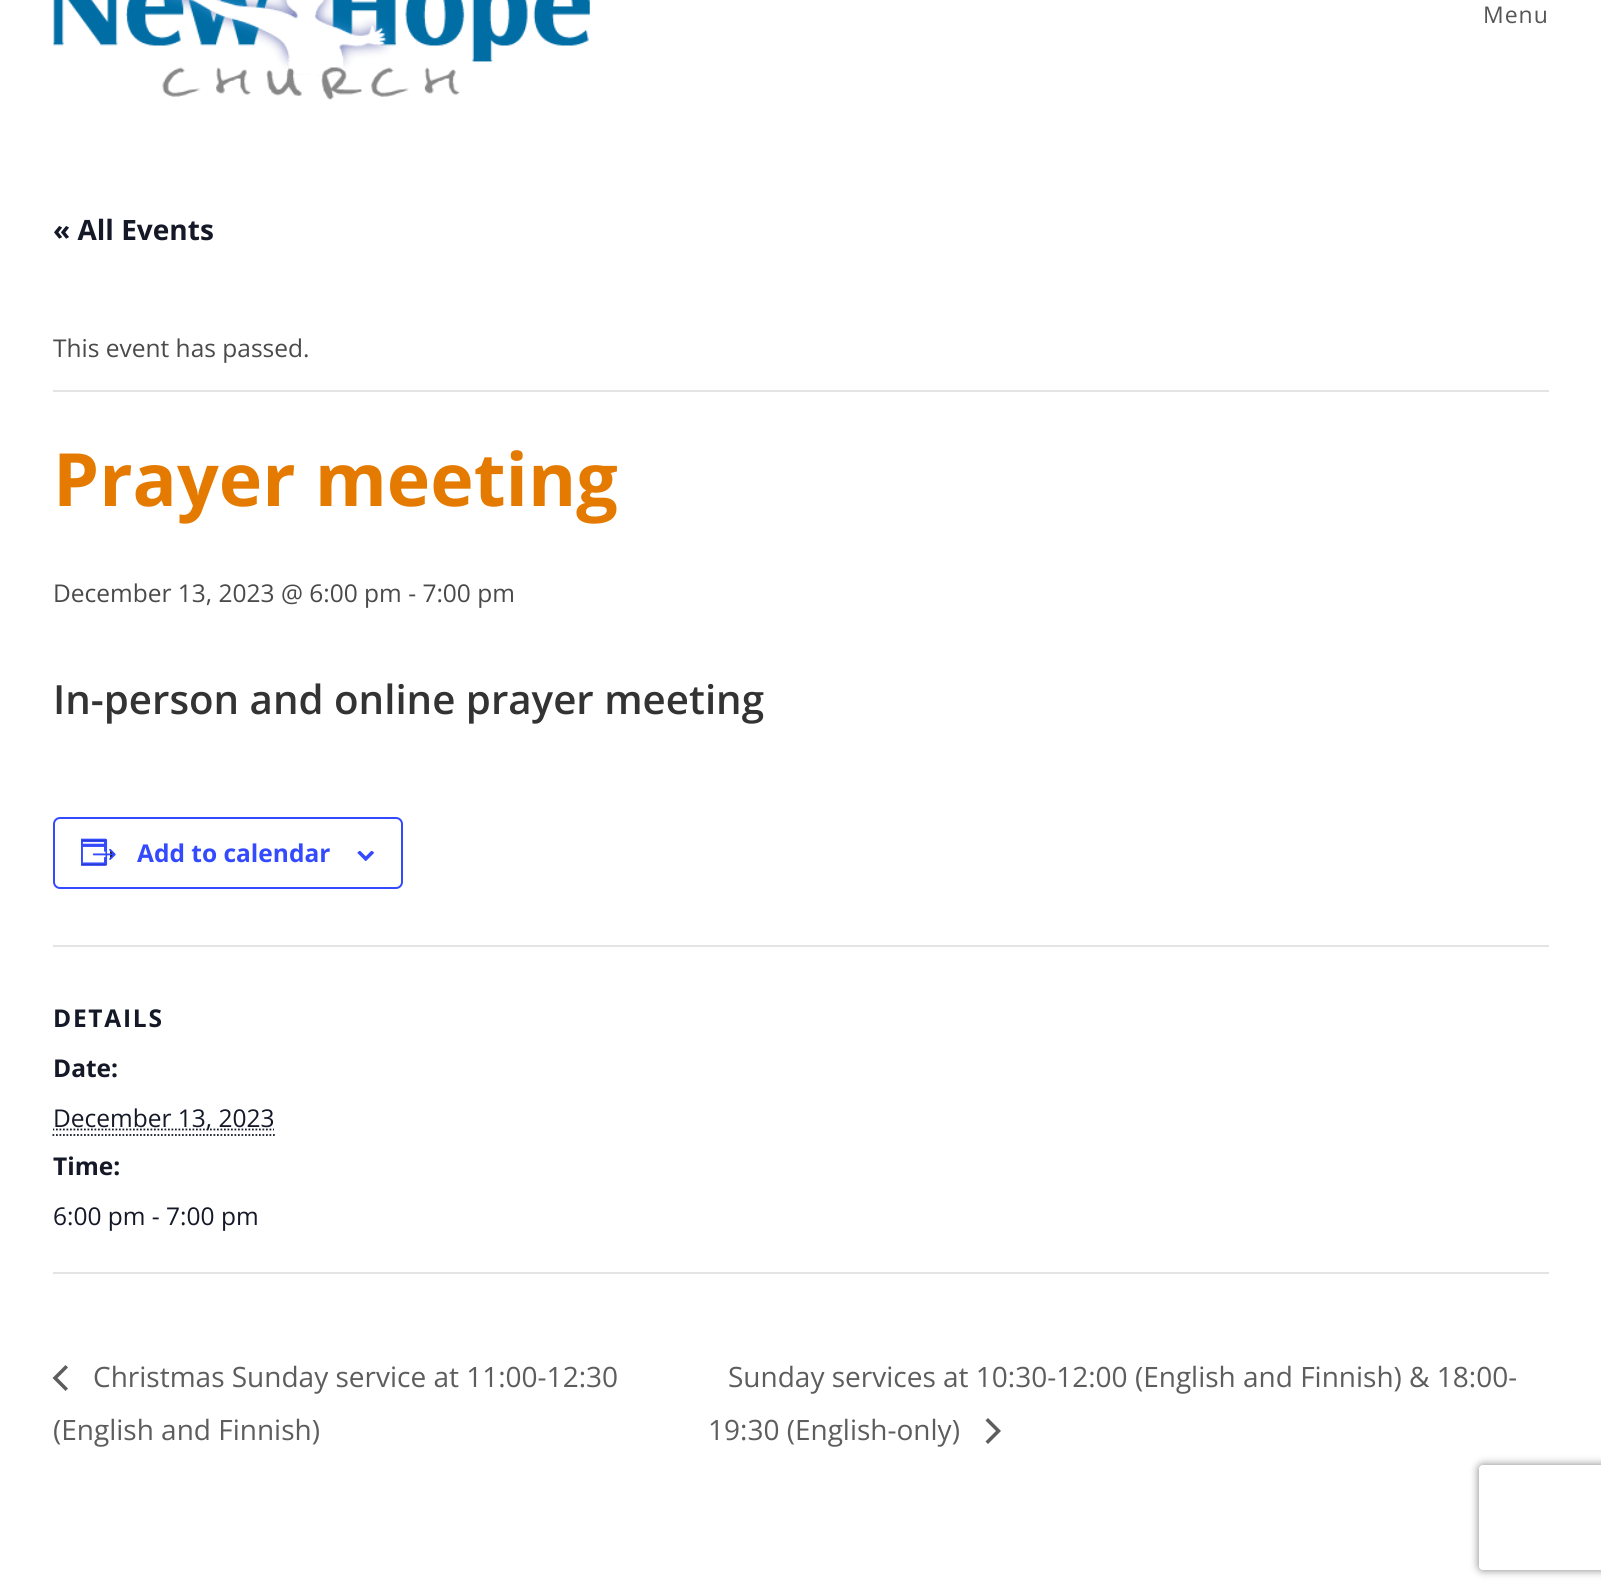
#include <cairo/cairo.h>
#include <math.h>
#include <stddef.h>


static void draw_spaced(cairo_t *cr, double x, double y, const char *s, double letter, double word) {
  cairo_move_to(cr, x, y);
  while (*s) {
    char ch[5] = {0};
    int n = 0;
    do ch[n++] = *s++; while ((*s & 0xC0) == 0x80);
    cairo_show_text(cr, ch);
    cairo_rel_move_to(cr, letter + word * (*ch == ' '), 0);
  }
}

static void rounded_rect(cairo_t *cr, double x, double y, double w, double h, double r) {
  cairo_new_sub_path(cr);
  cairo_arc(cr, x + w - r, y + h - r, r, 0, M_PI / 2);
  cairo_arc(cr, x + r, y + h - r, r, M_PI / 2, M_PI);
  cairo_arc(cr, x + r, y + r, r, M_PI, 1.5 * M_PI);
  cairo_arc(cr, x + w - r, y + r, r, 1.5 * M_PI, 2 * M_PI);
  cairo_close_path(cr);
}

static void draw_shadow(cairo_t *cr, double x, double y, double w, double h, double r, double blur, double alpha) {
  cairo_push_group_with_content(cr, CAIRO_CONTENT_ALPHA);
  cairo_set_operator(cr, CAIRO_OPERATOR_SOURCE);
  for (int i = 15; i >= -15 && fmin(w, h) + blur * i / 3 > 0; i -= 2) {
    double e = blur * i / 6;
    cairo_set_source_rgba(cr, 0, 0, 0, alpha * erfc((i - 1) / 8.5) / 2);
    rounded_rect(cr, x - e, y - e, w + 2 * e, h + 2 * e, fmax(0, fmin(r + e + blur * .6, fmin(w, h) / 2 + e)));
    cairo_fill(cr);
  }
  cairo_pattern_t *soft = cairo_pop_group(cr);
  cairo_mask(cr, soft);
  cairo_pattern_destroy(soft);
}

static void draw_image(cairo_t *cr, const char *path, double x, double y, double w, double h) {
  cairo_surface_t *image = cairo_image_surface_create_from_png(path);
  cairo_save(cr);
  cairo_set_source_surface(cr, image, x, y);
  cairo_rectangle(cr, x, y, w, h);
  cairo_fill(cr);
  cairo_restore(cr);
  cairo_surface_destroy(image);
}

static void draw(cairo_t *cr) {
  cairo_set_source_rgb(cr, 1, 1, 1);
  cairo_paint(cr);
  draw_image(cr, "images/1.png", 52, 0, 538, 100);
  cairo_set_source_rgb(cr, 228 / 255.0, 228 / 255.0, 228 / 255.0);
  cairo_rectangle(cr, 53, 390, 1496, 2);
  cairo_fill(cr);
  rounded_rect(cr, 54, 818, 348, 70, 6);
  cairo_set_source_rgb(cr, 51 / 255.0, 74 / 255.0, 1);
  cairo_stroke(cr);
  draw_image(cr, "images/2.png", 81, 838, 35, 28);
  draw_image(cr, "images/3.png", 357, 851, 18, 10);
  cairo_set_source_rgb(cr, 228 / 255.0, 228 / 255.0, 228 / 255.0);
  cairo_rectangle(cr, 53, 945, 1496, 2);
  cairo_fill(cr);
  cairo_new_path(cr);
  cairo_move_to(cr, 52.5, 1135);
  cairo_line_to(cr, 275, 1135);
  cairo_set_source_rgb(cr, 20 / 255.0, 24 / 255.0, 39 / 255.0);
  cairo_set_line_width(cr, 1.8);
  cairo_set_dash(cr, (double[]){1.75, 1.75}, 2, 0);
  cairo_stroke(cr);
  cairo_save(cr);
  cairo_rectangle(cr, 53, 670, 1496, 602);
  cairo_clip(cr);
  cairo_new_path(cr);
  cairo_move_to(cr, 52.5, 1129.5);
  cairo_line_to(cr, 274, 1129.5);
  cairo_stroke(cr);
  cairo_restore(cr);
  cairo_set_source_rgb(cr, 228 / 255.0, 228 / 255.0, 228 / 255.0);
  cairo_rectangle(cr, 53, 1272, 1496, 2);
  cairo_fill(cr);
  cairo_set_source_rgb(cr, 93 / 255.0, 93 / 255.0, 93 / 255.0);
  cairo_new_path(cr);
  cairo_move_to(cr, 68, 1388.5);
  cairo_line_to(cr, 65.5, 1391);
  cairo_line_to(cr, 52.5, 1378);
  cairo_line_to(cr, 65.5, 1365);
  cairo_line_to(cr, 68, 1367.5);
  cairo_line_to(cr, 57.5, 1378);
  cairo_close_path(cr);
  cairo_fill(cr);
  cairo_new_path(cr);
  cairo_move_to(cr, 985.5, 1420.5);
  cairo_line_to(cr, 988, 1418);
  cairo_line_to(cr, 1001, 1431);
  cairo_line_to(cr, 988, 1444);
  cairo_line_to(cr, 985.5, 1441.5);
  cairo_line_to(cr, 996, 1431);
  cairo_close_path(cr);
  cairo_fill(cr);
  cairo_save(cr);
  cairo_set_fill_rule(cr, CAIRO_FILL_RULE_EVEN_ODD);
  cairo_new_path(cr);
  cairo_move_to(cr, 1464, 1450);
  cairo_line_to(cr, 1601, 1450);
  cairo_line_to(cr, 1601, 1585);
  cairo_line_to(cr, 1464, 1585);
  cairo_close_path(cr);
  cairo_move_to(cr, 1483, 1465);
  cairo_line_to(cr, 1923, 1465);
  cairo_curve_to(cr, 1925, 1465, 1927, 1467, 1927, 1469);
  cairo_line_to(cr, 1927, 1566);
  cairo_curve_to(cr, 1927, 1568, 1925, 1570, 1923, 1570);
  cairo_line_to(cr, 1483, 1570);
  cairo_curve_to(cr, 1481, 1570, 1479, 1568, 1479, 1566);
  cairo_line_to(cr, 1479, 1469);
  cairo_curve_to(cr, 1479, 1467, 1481, 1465, 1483, 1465);
  cairo_close_path(cr);
  cairo_clip(cr);
  cairo_set_source_rgb(cr, 128 / 255.0, 128 / 255.0, 128 / 255.0);
  draw_shadow(cr, 1479, 1465, 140, 105, 4, 4.5, 1);
  cairo_restore(cr);
  cairo_select_font_face(cr, "Open Sans", CAIRO_FONT_SLANT_NORMAL, CAIRO_FONT_WEIGHT_NORMAL);
  cairo_set_font_size(cr, 23);
  cairo_set_source_rgb(cr, 85 / 255.0, 85 / 255.0, 85 / 255.0);
  draw_spaced(cr, 1483, 23, "Menu", 1, 0);
  cairo_select_font_face(cr, "Open Sans", CAIRO_FONT_SLANT_NORMAL, CAIRO_FONT_WEIGHT_BOLD);
  cairo_set_font_size(cr, 28);
  cairo_set_source_rgb(cr, 20 / 255.0, 24 / 255.0, 39 / 255.0);
  cairo_move_to(cr, 53, 240);
  cairo_show_text(cr, "« All Events");
  cairo_select_font_face(cr, "Open Sans", CAIRO_FONT_SLANT_NORMAL, CAIRO_FONT_WEIGHT_NORMAL);
  cairo_set_font_size(cr, 24.5);
  cairo_set_source_rgb(cr, 74 / 255.0, 74 / 255.0, 74 / 255.0);
  cairo_move_to(cr, 53, 357);
  cairo_show_text(cr, "This event has passed.");
  cairo_select_font_face(cr, "Open Sans", CAIRO_FONT_SLANT_NORMAL, CAIRO_FONT_WEIGHT_BOLD);
  cairo_set_font_size(cr, 73.5);
  cairo_set_source_rgb(cr, 229 / 255.0, 122 / 255.0, 0);
  cairo_move_to(cr, 53, 506);
  cairo_show_text(cr, "Prayer meeting");
  cairo_select_font_face(cr, "Open Sans", CAIRO_FONT_SLANT_NORMAL, CAIRO_FONT_WEIGHT_NORMAL);
  cairo_set_font_size(cr, 24.5);
  cairo_set_source_rgb(cr, 74 / 255.0, 74 / 255.0, 74 / 255.0);
  cairo_move_to(cr, 53, 602);
  cairo_show_text(cr, "December 13, 2023 @ 6:00 pm - 7:00 pm");
  cairo_select_font_face(cr, "Open Sans SemiBold", CAIRO_FONT_SLANT_NORMAL, CAIRO_FONT_WEIGHT_NORMAL);
  cairo_set_font_size(cr, 40.25);
  cairo_set_source_rgb(cr, 51 / 255.0, 51 / 255.0, 51 / 255.0);
  cairo_move_to(cr, 53, 714);
  cairo_show_text(cr, "In-person and online prayer meeting");
  cairo_select_font_face(cr, "Open Sans", CAIRO_FONT_SLANT_NORMAL, CAIRO_FONT_WEIGHT_BOLD);
  cairo_set_font_size(cr, 24.5);
  cairo_set_source_rgb(cr, 51 / 255.0, 74 / 255.0, 1);
  cairo_move_to(cr, 137, 862);
  cairo_show_text(cr, "Add to calendar");
  cairo_set_source_rgb(cr, 20 / 255.0, 24 / 255.0, 39 / 255.0);
  draw_spaced(cr, 53, 1027, "DETAILS", 1.75, 0);
  cairo_move_to(cr, 53, 1077);
  cairo_show_text(cr, "Date:");
  cairo_select_font_face(cr, "Open Sans", CAIRO_FONT_SLANT_NORMAL, CAIRO_FONT_WEIGHT_NORMAL);
  cairo_move_to(cr, 53, 1127);
  cairo_show_text(cr, "December 13, 2023");
  cairo_select_font_face(cr, "Open Sans", CAIRO_FONT_SLANT_NORMAL, CAIRO_FONT_WEIGHT_BOLD);
  cairo_move_to(cr, 53, 1175);
  cairo_show_text(cr, "Time:");
  cairo_select_font_face(cr, "Open Sans", CAIRO_FONT_SLANT_NORMAL, CAIRO_FONT_WEIGHT_NORMAL);
  cairo_move_to(cr, 53, 1225);
  cairo_show_text(cr, "6:00 pm - 7:00 pm");
  cairo_set_font_size(cr, 28);
  cairo_set_source_rgb(cr, 93 / 255.0, 93 / 255.0, 93 / 255.0);
  cairo_move_to(cr, 93, 1387);
  cairo_show_text(cr, "Christmas Sunday service at 11:00-12:30");
  cairo_move_to(cr, 53, 1440);
  cairo_show_text(cr, "(English and Finnish)");
  cairo_move_to(cr, 728, 1387);
  cairo_show_text(cr, "Sunday services at 10:30-12:00 (English and Finnish) & 18:00-");
  cairo_move_to(cr, 708, 1440);
  cairo_show_text(cr, "19:30 (English-only)");
}

int main(void) {
  cairo_surface_t *surface = cairo_image_surface_create(CAIRO_FORMAT_RGB24, 1601, 1594);
  cairo_t *cr = cairo_create(surface);
  cairo_font_options_t *options = cairo_font_options_create();
  cairo_font_options_set_hint_metrics(options, CAIRO_HINT_METRICS_OFF);
  cairo_font_options_set_hint_style(options, CAIRO_HINT_STYLE_NONE);
  cairo_set_font_options(cr, options);
  cairo_set_miter_limit(cr, 4);
  draw(cr);
  cairo_surface_write_to_png(surface, "out.png");
  cairo_font_options_destroy(options);
  cairo_destroy(cr);
  cairo_surface_destroy(surface);
  return 0;
}
